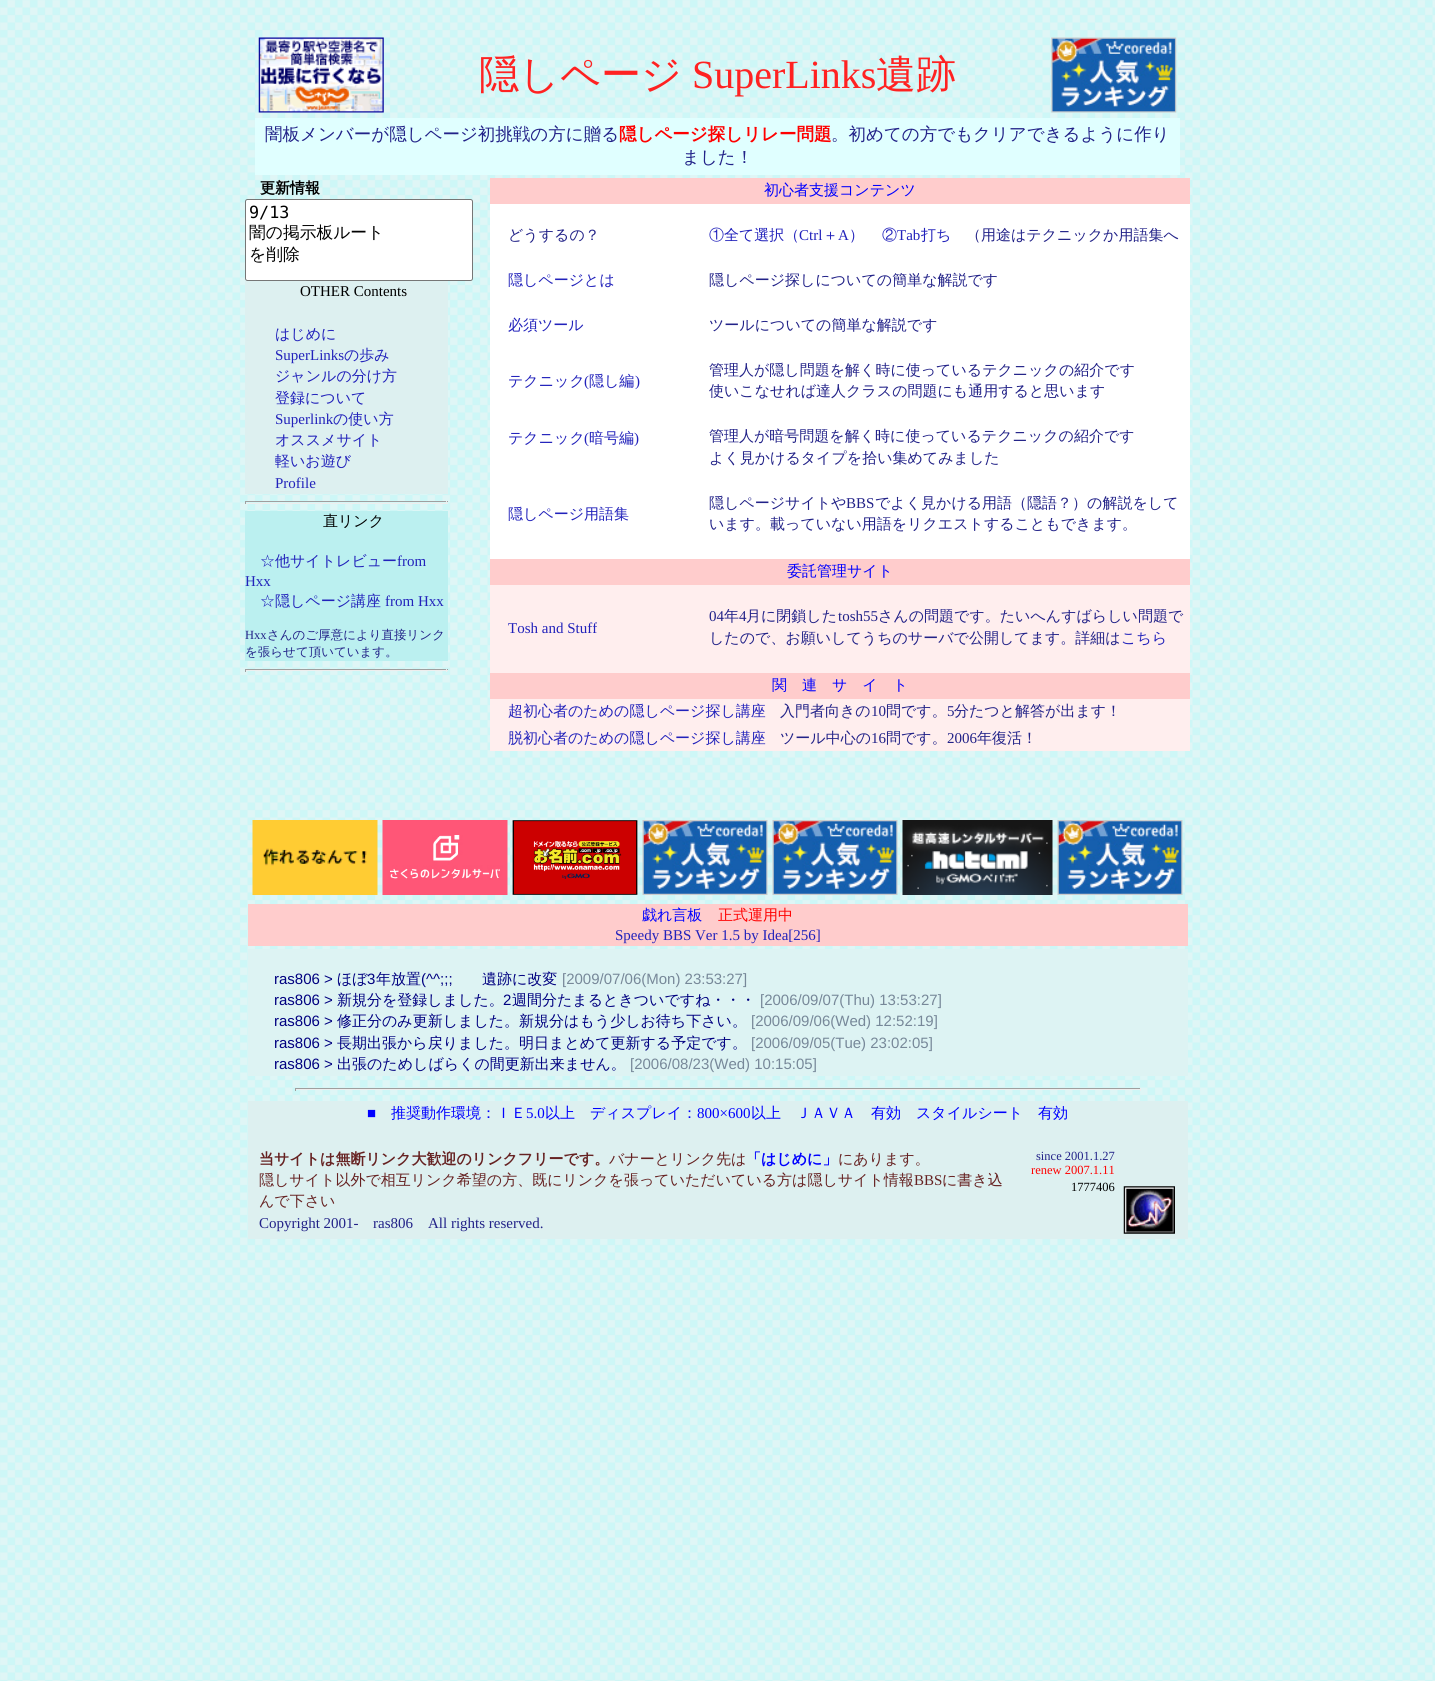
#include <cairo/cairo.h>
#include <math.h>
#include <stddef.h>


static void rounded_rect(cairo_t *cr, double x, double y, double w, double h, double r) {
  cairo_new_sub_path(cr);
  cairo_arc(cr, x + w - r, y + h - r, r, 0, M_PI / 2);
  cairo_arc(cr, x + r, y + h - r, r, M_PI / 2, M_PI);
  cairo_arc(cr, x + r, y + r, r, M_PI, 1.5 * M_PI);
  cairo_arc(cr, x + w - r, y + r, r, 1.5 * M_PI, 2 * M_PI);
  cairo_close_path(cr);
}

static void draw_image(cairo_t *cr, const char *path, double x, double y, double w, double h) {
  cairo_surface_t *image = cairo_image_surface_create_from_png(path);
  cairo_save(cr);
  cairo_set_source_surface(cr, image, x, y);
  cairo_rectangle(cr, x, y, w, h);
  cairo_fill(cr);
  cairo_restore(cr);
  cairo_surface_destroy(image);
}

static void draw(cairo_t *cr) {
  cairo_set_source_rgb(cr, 1, 1, 1);
  cairo_paint(cr);
  draw_image(cr, "images/1.png", 0, 0, 1435, 1681);
  draw_image(cr, "images/2.png", 258, 37, 126, 76);
  draw_image(cr, "images/3.png", 1051, 37, 126, 76);
  cairo_set_source_rgb(cr, 224 / 255.0, 1, 1);
  cairo_rectangle(cr, 255, 118, 925, 57);
  cairo_fill(cr);
  cairo_set_source_rgb(cr, 1, 1, 1);
  rounded_rect(cr, 245.5, 199.5, 227, 81, 2);
  cairo_fill_preserve(cr);
  cairo_set_source_rgb(cr, 118 / 255.0, 118 / 255.0, 118 / 255.0);
  cairo_set_line_width(cr, 1);
  cairo_stroke(cr);
  cairo_set_source_rgb(cr, 221 / 255.0, 240 / 255.0, 240 / 255.0);
  cairo_rectangle(cr, 245, 281, 203, 213);
  cairo_fill(cr);
  cairo_set_source_rgb(cr, 159 / 255.0, 159 / 255.0, 159 / 255.0);
  cairo_rectangle(cr, 245, 501, 203, 1);
  cairo_fill(cr);
  cairo_set_source_rgb(cr, 238 / 255.0, 238 / 255.0, 238 / 255.0);
  cairo_rectangle(cr, 446, 501, 1, 3);
  cairo_fill(cr);
  cairo_rectangle(cr, 245, 503, 203, 1);
  cairo_fill(cr);
  cairo_set_source_rgb(cr, 159 / 255.0, 159 / 255.0, 159 / 255.0);
  cairo_rectangle(cr, 245, 501, 1, 3);
  cairo_fill(cr);
  cairo_set_source_rgb(cr, 187 / 255.0, 240 / 255.0, 240 / 255.0);
  cairo_rectangle(cr, 245, 511, 203, 150);
  cairo_fill(cr);
  cairo_set_source_rgb(cr, 159 / 255.0, 159 / 255.0, 159 / 255.0);
  cairo_rectangle(cr, 245, 669, 203, 1);
  cairo_fill(cr);
  cairo_set_source_rgb(cr, 238 / 255.0, 238 / 255.0, 238 / 255.0);
  cairo_rectangle(cr, 446, 669, 1, 3);
  cairo_fill(cr);
  cairo_rectangle(cr, 245, 670, 203, 1);
  cairo_fill(cr);
  cairo_set_source_rgb(cr, 159 / 255.0, 159 / 255.0, 159 / 255.0);
  cairo_rectangle(cr, 245, 669, 1, 3);
  cairo_fill(cr);
  cairo_set_source_rgb(cr, 1, 204 / 255.0, 204 / 255.0);
  cairo_rectangle(cr, 490, 178, 700, 26);
  cairo_fill(cr);
  cairo_set_source_rgb(cr, 1, 1, 1);
  cairo_rectangle(cr, 490, 204, 700, 355);
  cairo_fill(cr);
  cairo_set_source_rgb(cr, 1, 204 / 255.0, 204 / 255.0);
  cairo_rectangle(cr, 490, 559, 700, 26);
  cairo_fill(cr);
  cairo_set_source_rgb(cr, 1, 238 / 255.0, 238 / 255.0);
  cairo_rectangle(cr, 490, 585, 700, 88);
  cairo_fill(cr);
  cairo_set_source_rgb(cr, 1, 204 / 255.0, 204 / 255.0);
  cairo_rectangle(cr, 490, 673, 700, 26);
  cairo_fill(cr);
  cairo_set_source_rgb(cr, 1, 238 / 255.0, 238 / 255.0);
  cairo_rectangle(cr, 490, 699, 700, 52);
  cairo_fill(cr);
  draw_image(cr, "images/4.png", 252, 820, 126, 75);
  draw_image(cr, "images/5.png", 382, 820, 126, 75);
  draw_image(cr, "images/6.png", 512, 820, 126, 75);
  draw_image(cr, "images/7.png", 642, 820, 126, 75);
  draw_image(cr, "images/8.png", 772, 820, 126, 75);
  draw_image(cr, "images/9.png", 902, 820, 151, 75);
  draw_image(cr, "images/8.png", 1057, 820, 126, 75);
  cairo_set_source_rgb(cr, 1, 204 / 255.0, 204 / 255.0);
  cairo_rectangle(cr, 248, 904, 940, 42);
  cairo_fill(cr);
  cairo_set_source_rgb(cr, 221 / 255.0, 243 / 255.0, 243 / 255.0);
  cairo_rectangle(cr, 248, 949, 940, 127);
  cairo_fill(cr);
  cairo_set_source_rgb(cr, 159 / 255.0, 159 / 255.0, 159 / 255.0);
  cairo_rectangle(cr, 295, 1088, 846, 1);
  cairo_fill(cr);
  cairo_set_source_rgb(cr, 238 / 255.0, 238 / 255.0, 238 / 255.0);
  cairo_rectangle(cr, 1140, 1088, 1, 3);
  cairo_fill(cr);
  cairo_rectangle(cr, 295, 1089, 846, 1);
  cairo_fill(cr);
  cairo_set_source_rgb(cr, 159 / 255.0, 159 / 255.0, 159 / 255.0);
  cairo_rectangle(cr, 295, 1088, 1, 3);
  cairo_fill(cr);
  cairo_set_source_rgb(cr, 221 / 255.0, 240 / 255.0, 240 / 255.0);
  cairo_rectangle(cr, 248, 1101, 940, 138);
  cairo_fill(cr);
  draw_image(cr, "images/10.png", 1123, 1186, 52, 48);
  cairo_select_font_face(cr, "WenQuanYi Zen Hei Medium", CAIRO_FONT_SLANT_NORMAL, CAIRO_FONT_WEIGHT_NORMAL);
  cairo_set_font_size(cr, 40);
  cairo_set_source_rgb(cr, 1, 34 / 255.0, 34 / 255.0);
  cairo_move_to(cr, 479, 88);
  cairo_show_text(cr, "隠しページ");
  cairo_select_font_face(cr, "Liberation Serif", CAIRO_FONT_SLANT_NORMAL, CAIRO_FONT_WEIGHT_NORMAL);
  cairo_move_to(cr, 692, 88);
  cairo_show_text(cr, "SuperLinks");
  cairo_select_font_face(cr, "WenQuanYi Zen Hei Medium", CAIRO_FONT_SLANT_NORMAL, CAIRO_FONT_WEIGHT_NORMAL);
  cairo_move_to(cr, 876, 88);
  cairo_show_text(cr, "遺跡");
  cairo_set_font_size(cr, 17.5);
  cairo_set_source_rgb(cr, 34 / 255.0, 34 / 255.0, 136 / 255.0);
  cairo_move_to(cr, 265, 140);
  cairo_show_text(cr, "闇板メンバーが隠しページ初挑戦の方に贈る");
  cairo_select_font_face(cr, "WenQuanYi Zen Hei", CAIRO_FONT_SLANT_NORMAL, CAIRO_FONT_WEIGHT_BOLD);
  cairo_set_source_rgb(cr, 1, 0, 0);
  cairo_move_to(cr, 619, 140);
  cairo_show_text(cr, "隠しページ探しリレー問題");
  cairo_select_font_face(cr, "WenQuanYi Zen Hei Medium", CAIRO_FONT_SLANT_NORMAL, CAIRO_FONT_WEIGHT_NORMAL);
  cairo_set_source_rgb(cr, 34 / 255.0, 34 / 255.0, 136 / 255.0);
  cairo_move_to(cr, 831, 140);
  cairo_show_text(cr, "。初めての方でもクリアできるように作り");
  cairo_move_to(cr, 682, 163);
  cairo_show_text(cr, "ました！");
  cairo_select_font_face(cr, "WenQuanYi Zen Hei", CAIRO_FONT_SLANT_NORMAL, CAIRO_FONT_WEIGHT_BOLD);
  cairo_set_font_size(cr, 15);
  cairo_set_source_rgb(cr, 0, 0, 0);
  cairo_move_to(cr, 260, 193);
  cairo_show_text(cr, "更新情報");
  cairo_select_font_face(cr, "DejaVu Sans Mono", CAIRO_FONT_SLANT_NORMAL, CAIRO_FONT_WEIGHT_NORMAL);
  cairo_set_font_size(cr, 16.75);
  cairo_move_to(cr, 249, 218);
  cairo_show_text(cr, "9/13");
  cairo_select_font_face(cr, "WenQuanYi Zen Hei Medium", CAIRO_FONT_SLANT_NORMAL, CAIRO_FONT_WEIGHT_NORMAL);
  cairo_move_to(cr, 249, 238);
  cairo_show_text(cr, "闇の掲示板ルート");
  cairo_move_to(cr, 249, 260);
  cairo_show_text(cr, "を削除");
  cairo_select_font_face(cr, "Liberation Serif", CAIRO_FONT_SLANT_NORMAL, CAIRO_FONT_WEIGHT_NORMAL);
  cairo_set_font_size(cr, 15);
  cairo_move_to(cr, 300, 296);
  cairo_show_text(cr, "OTHER Contents");
  cairo_select_font_face(cr, "WenQuanYi Zen Hei Medium", CAIRO_FONT_SLANT_NORMAL, CAIRO_FONT_WEIGHT_NORMAL);
  cairo_set_source_rgb(cr, 34 / 255.0, 34 / 255.0, 187 / 255.0);
  cairo_move_to(cr, 275, 339);
  cairo_show_text(cr, "はじめに");
  cairo_select_font_face(cr, "Liberation Serif", CAIRO_FONT_SLANT_NORMAL, CAIRO_FONT_WEIGHT_NORMAL);
  cairo_move_to(cr, 275, 360);
  cairo_show_text(cr, "SuperLinks");
  cairo_select_font_face(cr, "WenQuanYi Zen Hei Medium", CAIRO_FONT_SLANT_NORMAL, CAIRO_FONT_WEIGHT_NORMAL);
  cairo_move_to(cr, 344, 360);
  cairo_show_text(cr, "の歩み");
  cairo_move_to(cr, 275, 381);
  cairo_show_text(cr, "ジャンルの分け方");
  cairo_move_to(cr, 275, 403);
  cairo_show_text(cr, "登録について");
  cairo_select_font_face(cr, "Liberation Serif", CAIRO_FONT_SLANT_NORMAL, CAIRO_FONT_WEIGHT_NORMAL);
  cairo_move_to(cr, 275, 424);
  cairo_show_text(cr, "Superlink");
  cairo_select_font_face(cr, "WenQuanYi Zen Hei Medium", CAIRO_FONT_SLANT_NORMAL, CAIRO_FONT_WEIGHT_NORMAL);
  cairo_move_to(cr, 333, 424);
  cairo_show_text(cr, "の使い方");
  cairo_move_to(cr, 275, 445);
  cairo_show_text(cr, "オススメサイト");
  cairo_move_to(cr, 275, 466);
  cairo_show_text(cr, "軽いお遊び");
  cairo_select_font_face(cr, "Liberation Serif", CAIRO_FONT_SLANT_NORMAL, CAIRO_FONT_WEIGHT_NORMAL);
  cairo_move_to(cr, 275, 488);
  cairo_show_text(cr, "Profile");
  cairo_select_font_face(cr, "WenQuanYi Zen Hei Medium", CAIRO_FONT_SLANT_NORMAL, CAIRO_FONT_WEIGHT_NORMAL);
  cairo_set_source_rgb(cr, 0, 0, 0);
  cairo_move_to(cr, 323, 526);
  cairo_show_text(cr, "直リンク");
  cairo_set_source_rgb(cr, 34 / 255.0, 34 / 255.0, 187 / 255.0);
  cairo_move_to(cr, 260, 566);
  cairo_show_text(cr, "☆他サイトレビュー");
  cairo_select_font_face(cr, "Liberation Serif", CAIRO_FONT_SLANT_NORMAL, CAIRO_FONT_WEIGHT_NORMAL);
  cairo_move_to(cr, 397, 566);
  cairo_show_text(cr, "from");
  cairo_move_to(cr, 245, 586);
  cairo_show_text(cr, "Hxx");
  cairo_select_font_face(cr, "WenQuanYi Zen Hei Medium", CAIRO_FONT_SLANT_NORMAL, CAIRO_FONT_WEIGHT_NORMAL);
  cairo_move_to(cr, 260, 606);
  cairo_show_text(cr, "☆隠しページ講座");
  cairo_select_font_face(cr, "Liberation Serif", CAIRO_FONT_SLANT_NORMAL, CAIRO_FONT_WEIGHT_NORMAL);
  cairo_move_to(cr, 385, 606);
  cairo_show_text(cr, "from Hxx");
  cairo_set_font_size(cr, 12.5);
  cairo_set_source_rgb(cr, 34 / 255.0, 34 / 255.0, 136 / 255.0);
  cairo_move_to(cr, 245, 639);
  cairo_show_text(cr, "Hxx");
  cairo_select_font_face(cr, "WenQuanYi Zen Hei Medium", CAIRO_FONT_SLANT_NORMAL, CAIRO_FONT_WEIGHT_NORMAL);
  cairo_move_to(cr, 267, 639);
  cairo_show_text(cr, "さんのご厚意により直接リンク");
  cairo_move_to(cr, 245, 656);
  cairo_show_text(cr, "を張らせて頂いています。");
  cairo_set_font_size(cr, 15);
  cairo_set_source_rgb(cr, 0, 0, 1);
  cairo_move_to(cr, 764, 195);
  cairo_show_text(cr, "初心者支援コンテンツ");
  cairo_set_source_rgb(cr, 34 / 255.0, 34 / 255.0, 136 / 255.0);
  cairo_move_to(cr, 508, 240);
  cairo_show_text(cr, "どうするの？");
  cairo_set_source_rgb(cr, 34 / 255.0, 34 / 255.0, 187 / 255.0);
  cairo_move_to(cr, 709, 240);
  cairo_show_text(cr, "①全て選択（");
  cairo_select_font_face(cr, "Liberation Serif", CAIRO_FONT_SLANT_NORMAL, CAIRO_FONT_WEIGHT_NORMAL);
  cairo_move_to(cr, 799, 240);
  cairo_show_text(cr, "Ctrl");
  cairo_select_font_face(cr, "WenQuanYi Zen Hei Medium", CAIRO_FONT_SLANT_NORMAL, CAIRO_FONT_WEIGHT_NORMAL);
  cairo_move_to(cr, 823, 240);
  cairo_show_text(cr, "＋");
  cairo_select_font_face(cr, "Liberation Serif", CAIRO_FONT_SLANT_NORMAL, CAIRO_FONT_WEIGHT_NORMAL);
  cairo_move_to(cr, 838, 240);
  cairo_show_text(cr, "A");
  cairo_select_font_face(cr, "WenQuanYi Zen Hei Medium", CAIRO_FONT_SLANT_NORMAL, CAIRO_FONT_WEIGHT_NORMAL);
  cairo_move_to(cr, 849, 240);
  cairo_show_text(cr, "）");
  cairo_move_to(cr, 882, 240);
  cairo_show_text(cr, "②");
  cairo_select_font_face(cr, "Liberation Serif", CAIRO_FONT_SLANT_NORMAL, CAIRO_FONT_WEIGHT_NORMAL);
  cairo_move_to(cr, 897, 240);
  cairo_show_text(cr, "Tab");
  cairo_select_font_face(cr, "WenQuanYi Zen Hei Medium", CAIRO_FONT_SLANT_NORMAL, CAIRO_FONT_WEIGHT_NORMAL);
  cairo_move_to(cr, 921, 240);
  cairo_show_text(cr, "打ち");
  cairo_set_source_rgb(cr, 34 / 255.0, 34 / 255.0, 136 / 255.0);
  cairo_move_to(cr, 966, 240);
  cairo_show_text(cr, "（用途はテクニックか用語集へ");
  cairo_set_source_rgb(cr, 34 / 255.0, 34 / 255.0, 187 / 255.0);
  cairo_move_to(cr, 508, 285);
  cairo_show_text(cr, "隠しページとは");
  cairo_set_source_rgb(cr, 34 / 255.0, 34 / 255.0, 136 / 255.0);
  cairo_move_to(cr, 709, 285);
  cairo_show_text(cr, "隠しページ探しについての簡単な解説です");
  cairo_set_source_rgb(cr, 34 / 255.0, 34 / 255.0, 187 / 255.0);
  cairo_move_to(cr, 508, 330);
  cairo_show_text(cr, "必須ツール");
  cairo_set_source_rgb(cr, 34 / 255.0, 34 / 255.0, 136 / 255.0);
  cairo_move_to(cr, 709, 330);
  cairo_show_text(cr, "ツールについての簡単な解説です");
  cairo_set_source_rgb(cr, 34 / 255.0, 34 / 255.0, 187 / 255.0);
  cairo_move_to(cr, 508, 386);
  cairo_show_text(cr, "テクニック");
  cairo_select_font_face(cr, "Liberation Serif", CAIRO_FONT_SLANT_NORMAL, CAIRO_FONT_WEIGHT_NORMAL);
  cairo_move_to(cr, 584, 386);
  cairo_show_text(cr, "(");
  cairo_select_font_face(cr, "WenQuanYi Zen Hei Medium", CAIRO_FONT_SLANT_NORMAL, CAIRO_FONT_WEIGHT_NORMAL);
  cairo_move_to(cr, 589, 386);
  cairo_show_text(cr, "隠し編");
  cairo_select_font_face(cr, "Liberation Serif", CAIRO_FONT_SLANT_NORMAL, CAIRO_FONT_WEIGHT_NORMAL);
  cairo_move_to(cr, 635, 386);
  cairo_show_text(cr, ")");
  cairo_select_font_face(cr, "WenQuanYi Zen Hei Medium", CAIRO_FONT_SLANT_NORMAL, CAIRO_FONT_WEIGHT_NORMAL);
  cairo_set_source_rgb(cr, 34 / 255.0, 34 / 255.0, 136 / 255.0);
  cairo_move_to(cr, 709, 375);
  cairo_show_text(cr, "管理人が隠し問題を解く時に使っているテクニックの紹介です");
  cairo_move_to(cr, 709, 396);
  cairo_show_text(cr, "使いこなせれば達人クラスの問題にも通用すると思います");
  cairo_set_source_rgb(cr, 34 / 255.0, 34 / 255.0, 187 / 255.0);
  cairo_move_to(cr, 508, 443);
  cairo_show_text(cr, "テクニック");
  cairo_select_font_face(cr, "Liberation Serif", CAIRO_FONT_SLANT_NORMAL, CAIRO_FONT_WEIGHT_NORMAL);
  cairo_move_to(cr, 584, 443);
  cairo_show_text(cr, "(");
  cairo_select_font_face(cr, "WenQuanYi Zen Hei Medium", CAIRO_FONT_SLANT_NORMAL, CAIRO_FONT_WEIGHT_NORMAL);
  cairo_move_to(cr, 589, 443);
  cairo_show_text(cr, "暗号編");
  cairo_select_font_face(cr, "Liberation Serif", CAIRO_FONT_SLANT_NORMAL, CAIRO_FONT_WEIGHT_NORMAL);
  cairo_move_to(cr, 634, 443);
  cairo_show_text(cr, ")");
  cairo_select_font_face(cr, "WenQuanYi Zen Hei Medium", CAIRO_FONT_SLANT_NORMAL, CAIRO_FONT_WEIGHT_NORMAL);
  cairo_set_source_rgb(cr, 34 / 255.0, 34 / 255.0, 136 / 255.0);
  cairo_move_to(cr, 709, 441);
  cairo_show_text(cr, "管理人が暗号問題を解く時に使っているテクニックの紹介です");
  cairo_move_to(cr, 709, 463);
  cairo_show_text(cr, "よく見かけるタイプを拾い集めてみました");
  cairo_set_source_rgb(cr, 34 / 255.0, 34 / 255.0, 187 / 255.0);
  cairo_move_to(cr, 508, 519);
  cairo_show_text(cr, "隠しページ用語集");
  cairo_set_source_rgb(cr, 34 / 255.0, 34 / 255.0, 136 / 255.0);
  cairo_move_to(cr, 709, 508);
  cairo_show_text(cr, "隠しページサイトや");
  cairo_select_font_face(cr, "Liberation Serif", CAIRO_FONT_SLANT_NORMAL, CAIRO_FONT_WEIGHT_NORMAL);
  cairo_move_to(cr, 846, 508);
  cairo_show_text(cr, "BBS");
  cairo_select_font_face(cr, "WenQuanYi Zen Hei Medium", CAIRO_FONT_SLANT_NORMAL, CAIRO_FONT_WEIGHT_NORMAL);
  cairo_move_to(cr, 875, 508);
  cairo_show_text(cr, "でよく見かける用語（隠語？）の解説をして");
  cairo_move_to(cr, 709, 529);
  cairo_show_text(cr, "います。載っていない用語をリクエストすることもできます。");
  cairo_set_source_rgb(cr, 0, 0, 1);
  cairo_move_to(cr, 787, 576);
  cairo_show_text(cr, "委託管理サイト");
  cairo_select_font_face(cr, "Liberation Serif", CAIRO_FONT_SLANT_NORMAL, CAIRO_FONT_WEIGHT_NORMAL);
  cairo_set_source_rgb(cr, 34 / 255.0, 34 / 255.0, 187 / 255.0);
  cairo_move_to(cr, 508, 633);
  cairo_show_text(cr, "Tosh and Stuff");
  cairo_set_source_rgb(cr, 34 / 255.0, 34 / 255.0, 136 / 255.0);
  cairo_move_to(cr, 709, 621);
  cairo_show_text(cr, "04");
  cairo_select_font_face(cr, "WenQuanYi Zen Hei Medium", CAIRO_FONT_SLANT_NORMAL, CAIRO_FONT_WEIGHT_NORMAL);
  cairo_move_to(cr, 724, 621);
  cairo_show_text(cr, "年");
  cairo_select_font_face(cr, "Liberation Serif", CAIRO_FONT_SLANT_NORMAL, CAIRO_FONT_WEIGHT_NORMAL);
  cairo_move_to(cr, 739, 621);
  cairo_show_text(cr, "4");
  cairo_select_font_face(cr, "WenQuanYi Zen Hei Medium", CAIRO_FONT_SLANT_NORMAL, CAIRO_FONT_WEIGHT_NORMAL);
  cairo_move_to(cr, 746, 621);
  cairo_show_text(cr, "月に閉鎖した");
  cairo_select_font_face(cr, "Liberation Serif", CAIRO_FONT_SLANT_NORMAL, CAIRO_FONT_WEIGHT_NORMAL);
  cairo_move_to(cr, 838, 621);
  cairo_show_text(cr, "tosh55");
  cairo_select_font_face(cr, "WenQuanYi Zen Hei Medium", CAIRO_FONT_SLANT_NORMAL, CAIRO_FONT_WEIGHT_NORMAL);
  cairo_move_to(cr, 878, 621);
  cairo_show_text(cr, "さんの問題です。たいへんすばらしい問題で");
  cairo_move_to(cr, 709, 643);
  cairo_show_text(cr, "したので、お願いしてうちのサーバで公開してます。詳細は");
  cairo_set_source_rgb(cr, 34 / 255.0, 34 / 255.0, 187 / 255.0);
  cairo_move_to(cr, 1121, 643);
  cairo_show_text(cr, "こちら");
  cairo_set_source_rgb(cr, 0, 0, 1);
  cairo_move_to(cr, 772, 690);
  cairo_show_text(cr, "関　連　サ　イ　ト");
  cairo_set_source_rgb(cr, 34 / 255.0, 34 / 255.0, 187 / 255.0);
  cairo_move_to(cr, 508, 716);
  cairo_show_text(cr, "超初心者のための隠しページ探し講座");
  cairo_set_source_rgb(cr, 34 / 255.0, 34 / 255.0, 136 / 255.0);
  cairo_move_to(cr, 780, 716);
  cairo_show_text(cr, "入門者向きの");
  cairo_select_font_face(cr, "Liberation Serif", CAIRO_FONT_SLANT_NORMAL, CAIRO_FONT_WEIGHT_NORMAL);
  cairo_move_to(cr, 871, 716);
  cairo_show_text(cr, "10");
  cairo_select_font_face(cr, "WenQuanYi Zen Hei Medium", CAIRO_FONT_SLANT_NORMAL, CAIRO_FONT_WEIGHT_NORMAL);
  cairo_move_to(cr, 886, 716);
  cairo_show_text(cr, "問です。");
  cairo_select_font_face(cr, "Liberation Serif", CAIRO_FONT_SLANT_NORMAL, CAIRO_FONT_WEIGHT_NORMAL);
  cairo_move_to(cr, 947, 716);
  cairo_show_text(cr, "5");
  cairo_select_font_face(cr, "WenQuanYi Zen Hei Medium", CAIRO_FONT_SLANT_NORMAL, CAIRO_FONT_WEIGHT_NORMAL);
  cairo_move_to(cr, 954, 716);
  cairo_show_text(cr, "分たつと解答が出ます！");
  cairo_set_source_rgb(cr, 34 / 255.0, 34 / 255.0, 187 / 255.0);
  cairo_move_to(cr, 508, 743);
  cairo_show_text(cr, "脱初心者のための隠しページ探し講座");
  cairo_set_source_rgb(cr, 34 / 255.0, 34 / 255.0, 136 / 255.0);
  cairo_move_to(cr, 780, 743);
  cairo_show_text(cr, "ツール中心の");
  cairo_select_font_face(cr, "Liberation Serif", CAIRO_FONT_SLANT_NORMAL, CAIRO_FONT_WEIGHT_NORMAL);
  cairo_move_to(cr, 871, 743);
  cairo_show_text(cr, "16");
  cairo_select_font_face(cr, "WenQuanYi Zen Hei Medium", CAIRO_FONT_SLANT_NORMAL, CAIRO_FONT_WEIGHT_NORMAL);
  cairo_move_to(cr, 886, 743);
  cairo_show_text(cr, "問です。");
  cairo_select_font_face(cr, "Liberation Serif", CAIRO_FONT_SLANT_NORMAL, CAIRO_FONT_WEIGHT_NORMAL);
  cairo_move_to(cr, 947, 743);
  cairo_show_text(cr, "2006");
  cairo_select_font_face(cr, "WenQuanYi Zen Hei Medium", CAIRO_FONT_SLANT_NORMAL, CAIRO_FONT_WEIGHT_NORMAL);
  cairo_move_to(cr, 977, 743);
  cairo_show_text(cr, "年復活！");
  cairo_set_source_rgb(cr, 0, 0, 1);
  cairo_move_to(cr, 642, 920);
  cairo_show_text(cr, "戯れ言板");
  cairo_set_source_rgb(cr, 1, 0, 0);
  cairo_move_to(cr, 718, 920);
  cairo_show_text(cr, "正式運用中");
  cairo_select_font_face(cr, "Liberation Serif", CAIRO_FONT_SLANT_NORMAL, CAIRO_FONT_WEIGHT_NORMAL);
  cairo_set_source_rgb(cr, 34 / 255.0, 34 / 255.0, 187 / 255.0);
  cairo_move_to(cr, 615, 940);
  cairo_show_text(cr, "Speedy BBS Ver 1.5 by Idea[256]");
  cairo_select_font_face(cr, "Liberation Sans", CAIRO_FONT_SLANT_NORMAL, CAIRO_FONT_WEIGHT_NORMAL);
  cairo_set_source_rgb(cr, 0, 0, 128 / 255.0);
  cairo_move_to(cr, 274, 984);
  cairo_show_text(cr, "ras806 >");
  cairo_select_font_face(cr, "WenQuanYi Zen Hei Medium", CAIRO_FONT_SLANT_NORMAL, CAIRO_FONT_WEIGHT_NORMAL);
  cairo_move_to(cr, 337, 984);
  cairo_show_text(cr, "ほぼ");
  cairo_select_font_face(cr, "Liberation Sans", CAIRO_FONT_SLANT_NORMAL, CAIRO_FONT_WEIGHT_NORMAL);
  cairo_move_to(cr, 367, 984);
  cairo_show_text(cr, "3");
  cairo_select_font_face(cr, "WenQuanYi Zen Hei Medium", CAIRO_FONT_SLANT_NORMAL, CAIRO_FONT_WEIGHT_NORMAL);
  cairo_move_to(cr, 376, 984);
  cairo_show_text(cr, "年放置");
  cairo_select_font_face(cr, "Liberation Sans", CAIRO_FONT_SLANT_NORMAL, CAIRO_FONT_WEIGHT_NORMAL);
  cairo_move_to(cr, 421, 984);
  cairo_show_text(cr, "(^^;;;");
  cairo_select_font_face(cr, "WenQuanYi Zen Hei Medium", CAIRO_FONT_SLANT_NORMAL, CAIRO_FONT_WEIGHT_NORMAL);
  cairo_move_to(cr, 482, 984);
  cairo_show_text(cr, "遺跡に改変");
  cairo_select_font_face(cr, "Liberation Sans", CAIRO_FONT_SLANT_NORMAL, CAIRO_FONT_WEIGHT_NORMAL);
  cairo_set_source_rgb(cr, 119 / 255.0, 136 / 255.0, 153 / 255.0);
  cairo_move_to(cr, 562, 984);
  cairo_show_text(cr, "[2009/07/06(Mon) 23:53:27]");
  cairo_set_source_rgb(cr, 0, 0, 128 / 255.0);
  cairo_move_to(cr, 274, 1005);
  cairo_show_text(cr, "ras806 >");
  cairo_select_font_face(cr, "WenQuanYi Zen Hei Medium", CAIRO_FONT_SLANT_NORMAL, CAIRO_FONT_WEIGHT_NORMAL);
  cairo_move_to(cr, 337, 1005);
  cairo_show_text(cr, "新規分を登録しました。");
  cairo_select_font_face(cr, "Liberation Sans", CAIRO_FONT_SLANT_NORMAL, CAIRO_FONT_WEIGHT_NORMAL);
  cairo_move_to(cr, 503, 1005);
  cairo_show_text(cr, "2");
  cairo_select_font_face(cr, "WenQuanYi Zen Hei Medium", CAIRO_FONT_SLANT_NORMAL, CAIRO_FONT_WEIGHT_NORMAL);
  cairo_move_to(cr, 512, 1005);
  cairo_show_text(cr, "週間分たまるときついですね・・・");
  cairo_select_font_face(cr, "Liberation Sans", CAIRO_FONT_SLANT_NORMAL, CAIRO_FONT_WEIGHT_NORMAL);
  cairo_set_source_rgb(cr, 119 / 255.0, 136 / 255.0, 153 / 255.0);
  cairo_move_to(cr, 760, 1005);
  cairo_show_text(cr, "[2006/09/07(Thu) 13:53:27]");
  cairo_set_source_rgb(cr, 0, 0, 128 / 255.0);
  cairo_move_to(cr, 274, 1026);
  cairo_show_text(cr, "ras806 >");
  cairo_select_font_face(cr, "WenQuanYi Zen Hei Medium", CAIRO_FONT_SLANT_NORMAL, CAIRO_FONT_WEIGHT_NORMAL);
  cairo_move_to(cr, 337, 1026);
  cairo_show_text(cr, "修正分のみ更新しました。新規分はもう少しお待ち下さい。");
  cairo_select_font_face(cr, "Liberation Sans", CAIRO_FONT_SLANT_NORMAL, CAIRO_FONT_WEIGHT_NORMAL);
  cairo_set_source_rgb(cr, 119 / 255.0, 136 / 255.0, 153 / 255.0);
  cairo_move_to(cr, 751, 1026);
  cairo_show_text(cr, "[2006/09/06(Wed) 12:52:19]");
  cairo_set_source_rgb(cr, 0, 0, 128 / 255.0);
  cairo_move_to(cr, 274, 1048);
  cairo_show_text(cr, "ras806 >");
  cairo_select_font_face(cr, "WenQuanYi Zen Hei Medium", CAIRO_FONT_SLANT_NORMAL, CAIRO_FONT_WEIGHT_NORMAL);
  cairo_move_to(cr, 337, 1048);
  cairo_show_text(cr, "長期出張から戻りました。明日まとめて更新する予定です。");
  cairo_select_font_face(cr, "Liberation Sans", CAIRO_FONT_SLANT_NORMAL, CAIRO_FONT_WEIGHT_NORMAL);
  cairo_set_source_rgb(cr, 119 / 255.0, 136 / 255.0, 153 / 255.0);
  cairo_move_to(cr, 751, 1048);
  cairo_show_text(cr, "[2006/09/05(Tue) 23:02:05]");
  cairo_set_source_rgb(cr, 0, 0, 128 / 255.0);
  cairo_move_to(cr, 274, 1069);
  cairo_show_text(cr, "ras806 >");
  cairo_select_font_face(cr, "WenQuanYi Zen Hei Medium", CAIRO_FONT_SLANT_NORMAL, CAIRO_FONT_WEIGHT_NORMAL);
  cairo_move_to(cr, 337, 1069);
  cairo_show_text(cr, "出張のためしばらくの間更新出来ません。");
  cairo_select_font_face(cr, "Liberation Sans", CAIRO_FONT_SLANT_NORMAL, CAIRO_FONT_WEIGHT_NORMAL);
  cairo_set_source_rgb(cr, 119 / 255.0, 136 / 255.0, 153 / 255.0);
  cairo_move_to(cr, 630, 1069);
  cairo_show_text(cr, "[2006/08/23(Wed) 10:15:05]");
  cairo_select_font_face(cr, "Liberation Serif", CAIRO_FONT_SLANT_NORMAL, CAIRO_FONT_WEIGHT_NORMAL);
  cairo_set_source_rgb(cr, 0, 0, 1);
  cairo_move_to(cr, 367, 1118);
  cairo_show_text(cr, "■");
  cairo_select_font_face(cr, "WenQuanYi Zen Hei Medium", CAIRO_FONT_SLANT_NORMAL, CAIRO_FONT_WEIGHT_NORMAL);
  cairo_move_to(cr, 391, 1118);
  cairo_show_text(cr, "推奨動作環境：ＩＥ");
  cairo_select_font_face(cr, "Liberation Serif", CAIRO_FONT_SLANT_NORMAL, CAIRO_FONT_WEIGHT_NORMAL);
  cairo_move_to(cr, 526, 1118);
  cairo_show_text(cr, "5.0");
  cairo_select_font_face(cr, "WenQuanYi Zen Hei Medium", CAIRO_FONT_SLANT_NORMAL, CAIRO_FONT_WEIGHT_NORMAL);
  cairo_move_to(cr, 545, 1118);
  cairo_show_text(cr, "以上　ディスプレイ：");
  cairo_select_font_face(cr, "Liberation Serif", CAIRO_FONT_SLANT_NORMAL, CAIRO_FONT_WEIGHT_NORMAL);
  cairo_move_to(cr, 697, 1118);
  cairo_show_text(cr, "800×600");
  cairo_select_font_face(cr, "WenQuanYi Zen Hei Medium", CAIRO_FONT_SLANT_NORMAL, CAIRO_FONT_WEIGHT_NORMAL);
  cairo_move_to(cr, 751, 1118);
  cairo_show_text(cr, "以上　ＪＡＶＡ　有効　スタイルシート　有効");
  cairo_select_font_face(cr, "WenQuanYi Zen Hei", CAIRO_FONT_SLANT_NORMAL, CAIRO_FONT_WEIGHT_BOLD);
  cairo_set_source_rgb(cr, 102 / 255.0, 34 / 255.0, 34 / 255.0);
  cairo_move_to(cr, 259, 1164);
  cairo_show_text(cr, "当サイトは無断リンク大歓迎のリンクフリーです。");
  cairo_select_font_face(cr, "WenQuanYi Zen Hei Medium", CAIRO_FONT_SLANT_NORMAL, CAIRO_FONT_WEIGHT_NORMAL);
  cairo_move_to(cr, 609, 1164);
  cairo_show_text(cr, "バナーとリンク先は");
  cairo_select_font_face(cr, "WenQuanYi Zen Hei", CAIRO_FONT_SLANT_NORMAL, CAIRO_FONT_WEIGHT_BOLD);
  cairo_set_source_rgb(cr, 0, 0, 1);
  cairo_move_to(cr, 746, 1164);
  cairo_show_text(cr, "「はじめに」");
  cairo_select_font_face(cr, "WenQuanYi Zen Hei Medium", CAIRO_FONT_SLANT_NORMAL, CAIRO_FONT_WEIGHT_NORMAL);
  cairo_set_source_rgb(cr, 102 / 255.0, 34 / 255.0, 34 / 255.0);
  cairo_move_to(cr, 838, 1164);
  cairo_show_text(cr, "にあります。");
  cairo_move_to(cr, 259, 1185);
  cairo_show_text(cr, "隠しサイト以外で相互リンク希望の方、既にリンクを張っていただいている方は隠しサイト情報");
  cairo_select_font_face(cr, "Liberation Serif", CAIRO_FONT_SLANT_NORMAL, CAIRO_FONT_WEIGHT_NORMAL);
  cairo_move_to(cr, 914, 1185);
  cairo_show_text(cr, "BBS");
  cairo_select_font_face(cr, "WenQuanYi Zen Hei Medium", CAIRO_FONT_SLANT_NORMAL, CAIRO_FONT_WEIGHT_NORMAL);
  cairo_move_to(cr, 942, 1185);
  cairo_show_text(cr, "に書き込");
  cairo_move_to(cr, 259, 1206);
  cairo_show_text(cr, "んで下さい");
  cairo_select_font_face(cr, "Liberation Serif", CAIRO_FONT_SLANT_NORMAL, CAIRO_FONT_WEIGHT_NORMAL);
  cairo_set_source_rgb(cr, 34 / 255.0, 34 / 255.0, 136 / 255.0);
  cairo_move_to(cr, 259, 1228);
  cairo_show_text(cr, "Copyright 2001-");
  cairo_move_to(cr, 373, 1228);
  cairo_show_text(cr, "ras806");
  cairo_move_to(cr, 428, 1228);
  cairo_show_text(cr, "All rights reserved.");
  cairo_set_font_size(cr, 12.5);
  cairo_move_to(cr, 1036, 1160);
  cairo_show_text(cr, "since 2001.1.27");
  cairo_set_source_rgb(cr, 1, 0, 0);
  cairo_move_to(cr, 1031, 1174);
  cairo_show_text(cr, "renew 2007.1.11");
  cairo_set_source_rgb(cr, 0, 0, 0);
  cairo_move_to(cr, 1071, 1191);
  cairo_show_text(cr, "1777406");
}

int main(void) {
  cairo_surface_t *surface = cairo_image_surface_create(CAIRO_FORMAT_RGB24, 1435, 1681);
  cairo_t *cr = cairo_create(surface);
  cairo_font_options_t *options = cairo_font_options_create();
  cairo_font_options_set_hint_metrics(options, CAIRO_HINT_METRICS_OFF);
  cairo_font_options_set_hint_style(options, CAIRO_HINT_STYLE_NONE);
  cairo_set_font_options(cr, options);
  cairo_set_miter_limit(cr, 4);
  draw(cr);
  cairo_surface_write_to_png(surface, "out.png");
  cairo_font_options_destroy(options);
  cairo_destroy(cr);
  cairo_surface_destroy(surface);
  return 0;
}
